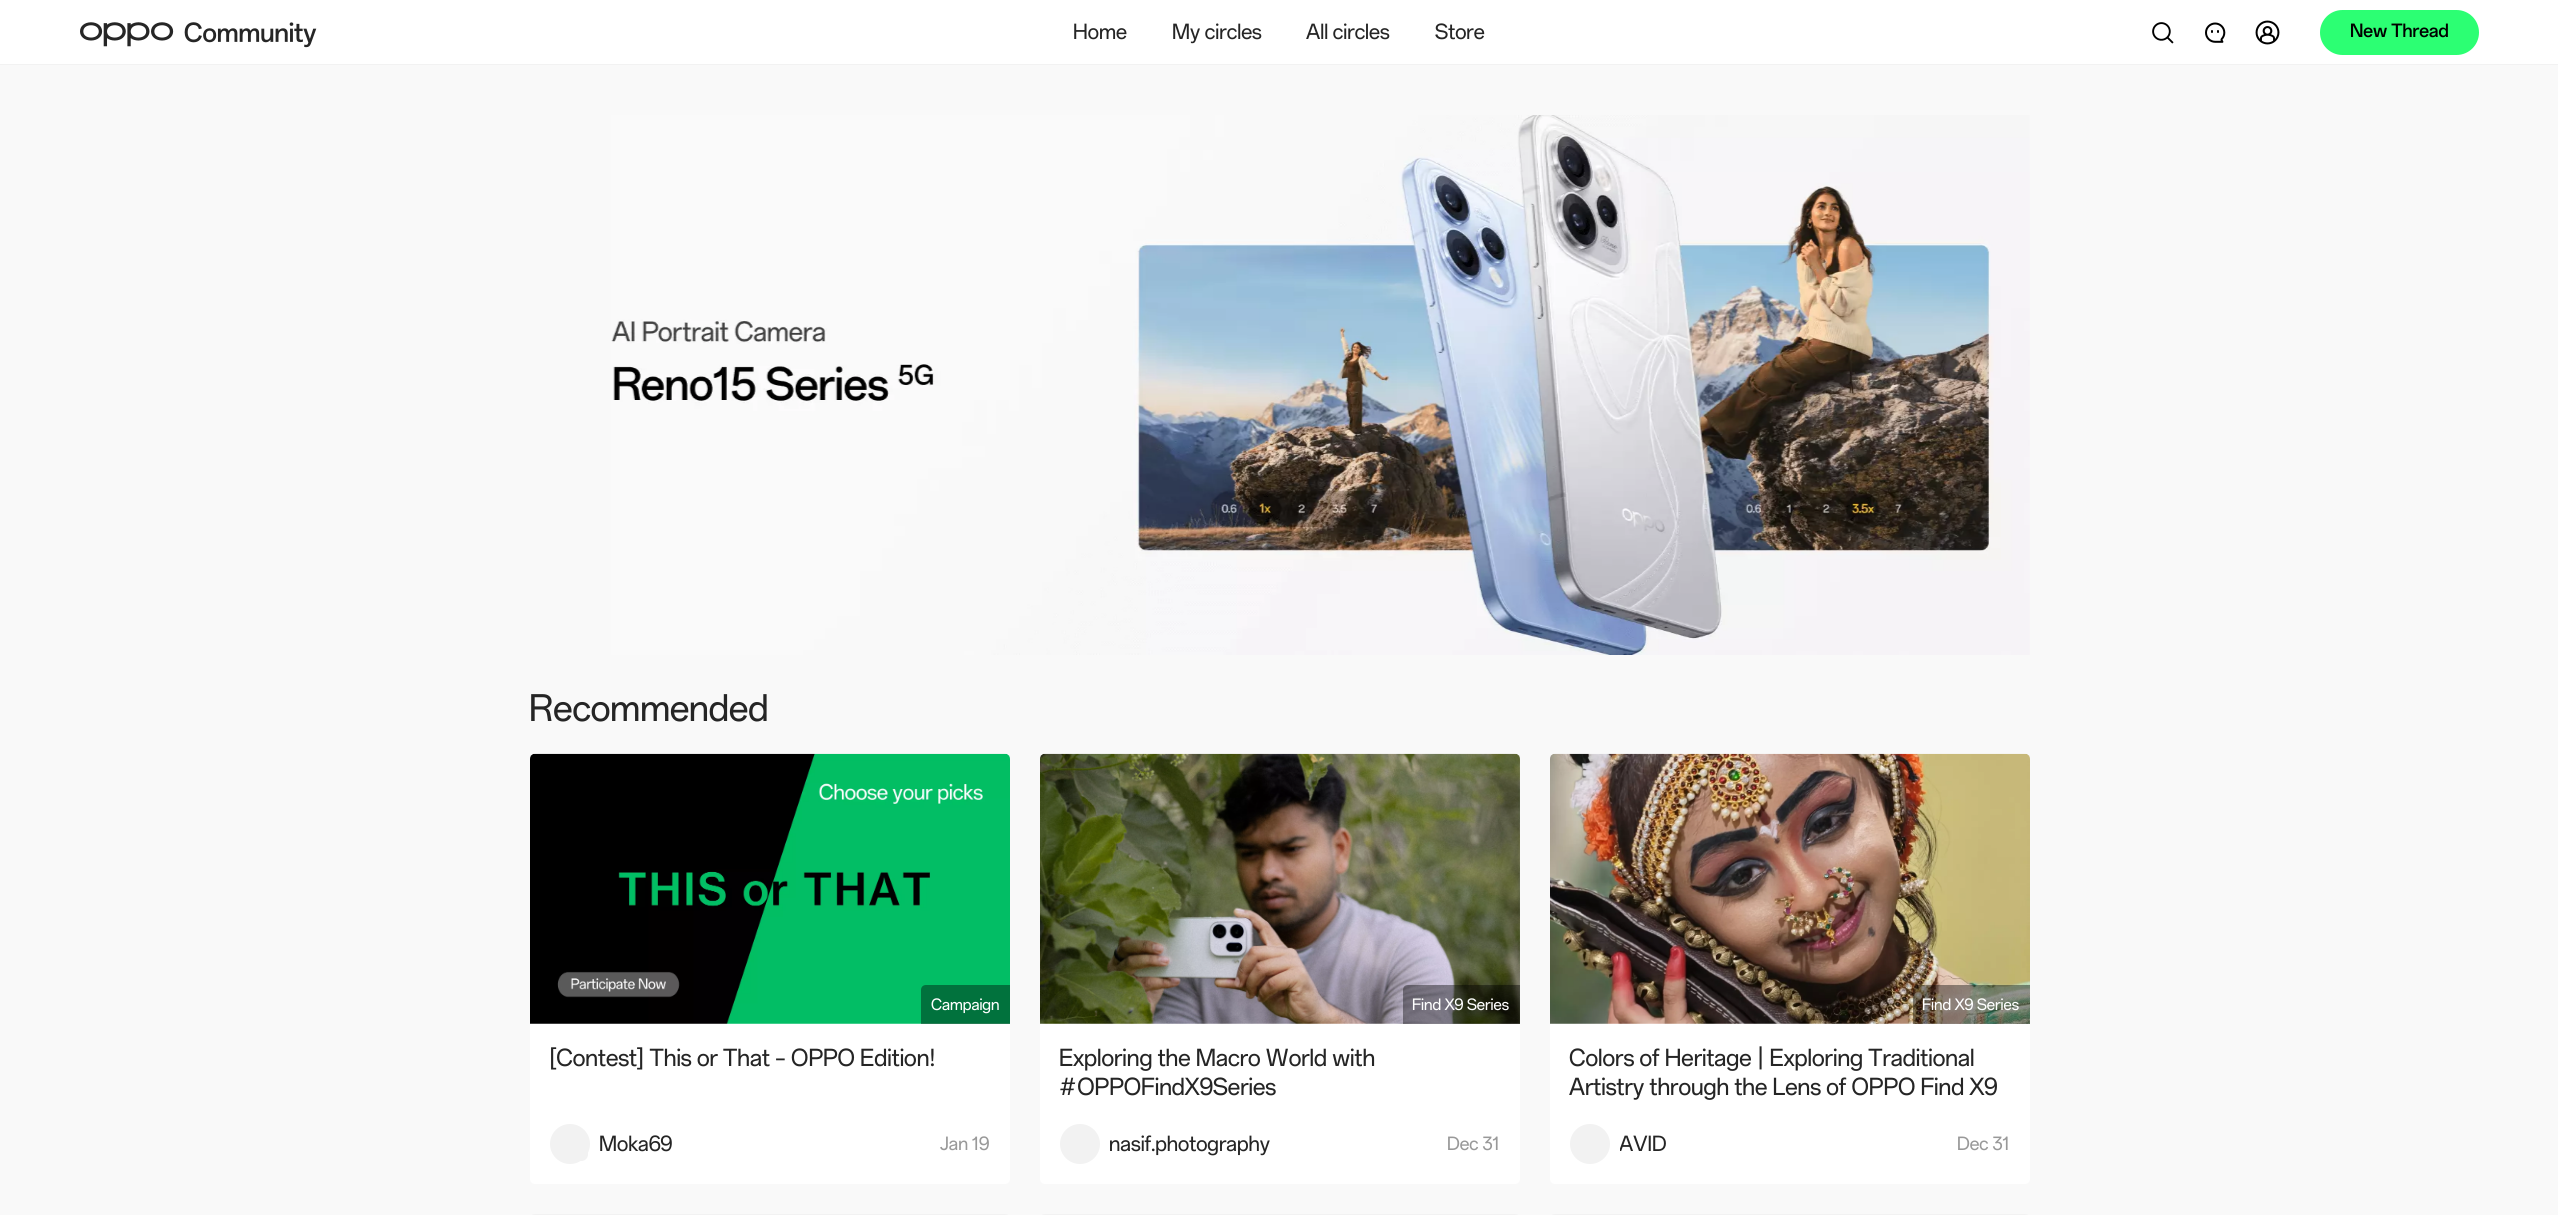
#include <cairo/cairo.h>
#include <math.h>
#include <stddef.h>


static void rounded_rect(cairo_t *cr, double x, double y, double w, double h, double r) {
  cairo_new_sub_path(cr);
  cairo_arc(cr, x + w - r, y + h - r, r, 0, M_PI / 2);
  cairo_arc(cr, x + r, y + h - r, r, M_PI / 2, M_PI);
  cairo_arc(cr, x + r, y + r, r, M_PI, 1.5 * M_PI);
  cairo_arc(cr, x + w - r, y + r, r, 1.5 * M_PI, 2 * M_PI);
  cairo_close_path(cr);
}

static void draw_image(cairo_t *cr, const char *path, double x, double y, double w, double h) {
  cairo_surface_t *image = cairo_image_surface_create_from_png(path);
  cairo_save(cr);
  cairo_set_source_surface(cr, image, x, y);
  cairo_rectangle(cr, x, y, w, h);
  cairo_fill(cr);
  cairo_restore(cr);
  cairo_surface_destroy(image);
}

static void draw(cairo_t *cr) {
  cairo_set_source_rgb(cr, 1, 1, 1);
  cairo_paint(cr);
  cairo_set_source_rgb(cr, 242 / 255.0, 242 / 255.0, 242 / 255.0);
  cairo_rectangle(cr, 0, 64, 2558, 1);
  cairo_fill(cr);
  draw_image(cr, "images/1.png", 80, 22, 237, 26);
  draw_image(cr, "images/2.png", 2152, 22, 22, 22);
  draw_image(cr, "images/3.png", 2205, 22, 21, 21);
  draw_image(cr, "images/4.png", 2255, 20, 25, 25);
  cairo_set_source_rgb(cr, 44 / 255.0, 1, 115 / 255.0);
  rounded_rect(cr, 2320, 10, 159, 45, 22.5);
  cairo_fill(cr);
  cairo_set_source_rgb(cr, 249 / 255.0, 249 / 255.0, 249 / 255.0);
  cairo_rectangle(cr, 0, 65, 2558, 1150);
  cairo_fill(cr);
  draw_image(cr, "images/5.png", 611, 115, 1419, 540);
  cairo_set_source_rgb(cr, 1, 1, 1);
  rounded_rect(cr, 530, 754, 480, 430, 5);
  cairo_fill(cr);
  draw_image(cr, "images/6.png", 530, 753, 480, 271);
  cairo_set_source_rgba(cr, 0, 0, 0, 0.4);
  cairo_new_path(cr);
  cairo_move_to(cr, 926, 985);
  cairo_line_to(cr, 1010, 985);
  cairo_line_to(cr, 1010, 1024);
  cairo_line_to(cr, 921, 1024);
  cairo_line_to(cr, 921, 990);
  cairo_curve_to(cr, 921, 987, 923, 985, 926, 985);
  cairo_close_path(cr);
  cairo_fill(cr);
  cairo_set_source_rgb(cr, 242 / 255.0, 242 / 255.0, 242 / 255.0);
  cairo_arc(cr, 570, 1144, 20, 0, 2 * M_PI);
  cairo_fill(cr);
  rounded_rect(cr, 574, 1148, 14, 13, 6.5);
  cairo_fill(cr);
  cairo_set_source_rgb(cr, 1, 1, 1);
  rounded_rect(cr, 1040, 754, 480, 430, 5);
  cairo_fill(cr);
  draw_image(cr, "images/7.png", 1040, 753, 480, 271);
  cairo_set_source_rgba(cr, 0, 0, 0, 0.4);
  cairo_new_path(cr);
  cairo_move_to(cr, 1408, 985);
  cairo_line_to(cr, 1520, 985);
  cairo_line_to(cr, 1520, 1024);
  cairo_line_to(cr, 1403, 1024);
  cairo_line_to(cr, 1403, 990);
  cairo_curve_to(cr, 1403, 987, 1405, 985, 1408, 985);
  cairo_close_path(cr);
  cairo_fill(cr);
  cairo_set_source_rgb(cr, 242 / 255.0, 242 / 255.0, 242 / 255.0);
  cairo_arc(cr, 1080, 1144, 20, 0, 2 * M_PI);
  cairo_fill(cr);
  cairo_set_source_rgb(cr, 1, 1, 1);
  rounded_rect(cr, 1550, 754, 480, 430, 5);
  cairo_fill(cr);
  draw_image(cr, "images/8.png", 1550, 753, 480, 271);
  cairo_set_source_rgba(cr, 0, 0, 0, 0.4);
  cairo_new_path(cr);
  cairo_move_to(cr, 1918, 985);
  cairo_line_to(cr, 2030, 985);
  cairo_line_to(cr, 2030, 1024);
  cairo_line_to(cr, 1913, 1024);
  cairo_line_to(cr, 1913, 990);
  cairo_curve_to(cr, 1913, 987, 1915, 985, 1918, 985);
  cairo_close_path(cr);
  cairo_fill(cr);
  cairo_set_source_rgb(cr, 242 / 255.0, 242 / 255.0, 242 / 255.0);
  cairo_arc(cr, 1590, 1144, 20, 0, 2 * M_PI);
  cairo_fill(cr);
  cairo_new_path(cr);
  cairo_move_to(cr, 535, 1214);
  cairo_line_to(cr, 1005, 1214);
  cairo_curve_to(cr, 1008, 1214, 1010, 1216, 1010, 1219);
  cairo_line_to(cr, 1010, 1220);
  cairo_line_to(cr, 530, 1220);
  cairo_line_to(cr, 530, 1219);
  cairo_curve_to(cr, 530, 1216, 532, 1214, 535, 1214);
  cairo_close_path(cr);
  cairo_fill(cr);
  cairo_new_path(cr);
  cairo_move_to(cr, 1045, 1214);
  cairo_line_to(cr, 1515, 1214);
  cairo_curve_to(cr, 1518, 1214, 1520, 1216, 1520, 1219);
  cairo_line_to(cr, 1520, 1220);
  cairo_line_to(cr, 1040, 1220);
  cairo_line_to(cr, 1040, 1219);
  cairo_curve_to(cr, 1040, 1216, 1042, 1214, 1045, 1214);
  cairo_close_path(cr);
  cairo_fill(cr);
  cairo_new_path(cr);
  cairo_move_to(cr, 1555, 1214);
  cairo_line_to(cr, 2025, 1214);
  cairo_curve_to(cr, 2028, 1214, 2030, 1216, 2030, 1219);
  cairo_line_to(cr, 2030, 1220);
  cairo_line_to(cr, 1550, 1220);
  cairo_line_to(cr, 1550, 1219);
  cairo_curve_to(cr, 1550, 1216, 1552, 1214, 1555, 1214);
  cairo_close_path(cr);
  cairo_fill(cr);
  cairo_select_font_face(cr, "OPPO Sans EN", CAIRO_FONT_SLANT_NORMAL, CAIRO_FONT_WEIGHT_NORMAL);
  cairo_set_font_size(cr, 20);
  cairo_set_source_rgb(cr, 37 / 255.0, 37 / 255.0, 37 / 255.0);
  cairo_move_to(cr, 1073, 39);
  cairo_show_text(cr, "Home");
  cairo_move_to(cr, 1172, 39);
  cairo_show_text(cr, "My circles");
  cairo_move_to(cr, 1306, 39);
  cairo_show_text(cr, "All circles");
  cairo_move_to(cr, 1435, 39);
  cairo_show_text(cr, "Store");
  cairo_select_font_face(cr, "OPPO Sans EN Medium", CAIRO_FONT_SLANT_NORMAL, CAIRO_FONT_WEIGHT_NORMAL);
  cairo_set_font_size(cr, 17.5);
  cairo_set_source_rgb(cr, 0, 0, 0);
  cairo_move_to(cr, 2350, 37);
  cairo_show_text(cr, "New Thread");
  cairo_select_font_face(cr, "OPPO Sans EN", CAIRO_FONT_SLANT_NORMAL, CAIRO_FONT_WEIGHT_NORMAL);
  cairo_set_font_size(cr, 35);
  cairo_set_source_rgb(cr, 37 / 255.0, 37 / 255.0, 37 / 255.0);
  cairo_move_to(cr, 529, 721);
  cairo_show_text(cr, "Recommended");
  cairo_set_font_size(cr, 15);
  cairo_set_source_rgb(cr, 1, 1, 1);
  cairo_move_to(cr, 931, 1010);
  cairo_show_text(cr, "Campaign");
  cairo_set_font_size(cr, 22.5);
  cairo_set_source_rgb(cr, 37 / 255.0, 37 / 255.0, 37 / 255.0);
  cairo_move_to(cr, 549, 1066);
  cairo_show_text(cr, "[Contest] This or That – OPPO Edition!");
  cairo_set_font_size(cr, 20);
  cairo_move_to(cr, 599, 1151);
  cairo_show_text(cr, "Moka69");
  cairo_set_font_size(cr, 17.5);
  cairo_set_source_rgb(cr, 153 / 255.0, 153 / 255.0, 153 / 255.0);
  cairo_move_to(cr, 940, 1150);
  cairo_show_text(cr, "Jan 19");
  cairo_set_font_size(cr, 15);
  cairo_set_source_rgb(cr, 1, 1, 1);
  cairo_move_to(cr, 1412, 1010);
  cairo_show_text(cr, "Find X9 Series");
  cairo_set_font_size(cr, 22.5);
  cairo_set_source_rgb(cr, 37 / 255.0, 37 / 255.0, 37 / 255.0);
  cairo_move_to(cr, 1059, 1066);
  cairo_show_text(cr, "Exploring the Macro World with");
  cairo_move_to(cr, 1059, 1095);
  cairo_show_text(cr, "#OPPOFindX9Series");
  cairo_set_font_size(cr, 20);
  cairo_move_to(cr, 1109, 1151);
  cairo_show_text(cr, "nasif.photography");
  cairo_set_font_size(cr, 17.5);
  cairo_set_source_rgb(cr, 153 / 255.0, 153 / 255.0, 153 / 255.0);
  cairo_move_to(cr, 1447, 1150);
  cairo_show_text(cr, "Dec 31");
  cairo_set_font_size(cr, 15);
  cairo_set_source_rgb(cr, 1, 1, 1);
  cairo_move_to(cr, 1922, 1010);
  cairo_show_text(cr, "Find X9 Series");
  cairo_set_font_size(cr, 22.5);
  cairo_set_source_rgb(cr, 37 / 255.0, 37 / 255.0, 37 / 255.0);
  cairo_move_to(cr, 1569, 1066);
  cairo_show_text(cr, "Colors of Heritage | Exploring Traditional");
  cairo_move_to(cr, 1569, 1095);
  cairo_show_text(cr, "Artistry through the Lens of OPPO Find X9");
  cairo_save(cr);
  cairo_rectangle(cr, 1620, 1129, 46, 30);
  cairo_clip(cr);
  cairo_set_font_size(cr, 20);
  cairo_move_to(cr, 1619, 1151);
  cairo_show_text(cr, "AVID");
  cairo_restore(cr);
  cairo_set_font_size(cr, 17.5);
  cairo_set_source_rgb(cr, 153 / 255.0, 153 / 255.0, 153 / 255.0);
  cairo_move_to(cr, 1957, 1150);
  cairo_show_text(cr, "Dec 31");
}

int main(void) {
  cairo_surface_t *surface = cairo_image_surface_create(CAIRO_FORMAT_RGB24, 2558, 1215);
  cairo_t *cr = cairo_create(surface);
  cairo_font_options_t *options = cairo_font_options_create();
  cairo_font_options_set_hint_metrics(options, CAIRO_HINT_METRICS_OFF);
  cairo_font_options_set_hint_style(options, CAIRO_HINT_STYLE_NONE);
  cairo_set_font_options(cr, options);
  cairo_set_miter_limit(cr, 4);
  draw(cr);
  cairo_surface_write_to_png(surface, "out.png");
  cairo_font_options_destroy(options);
  cairo_destroy(cr);
  cairo_surface_destroy(surface);
  return 0;
}
